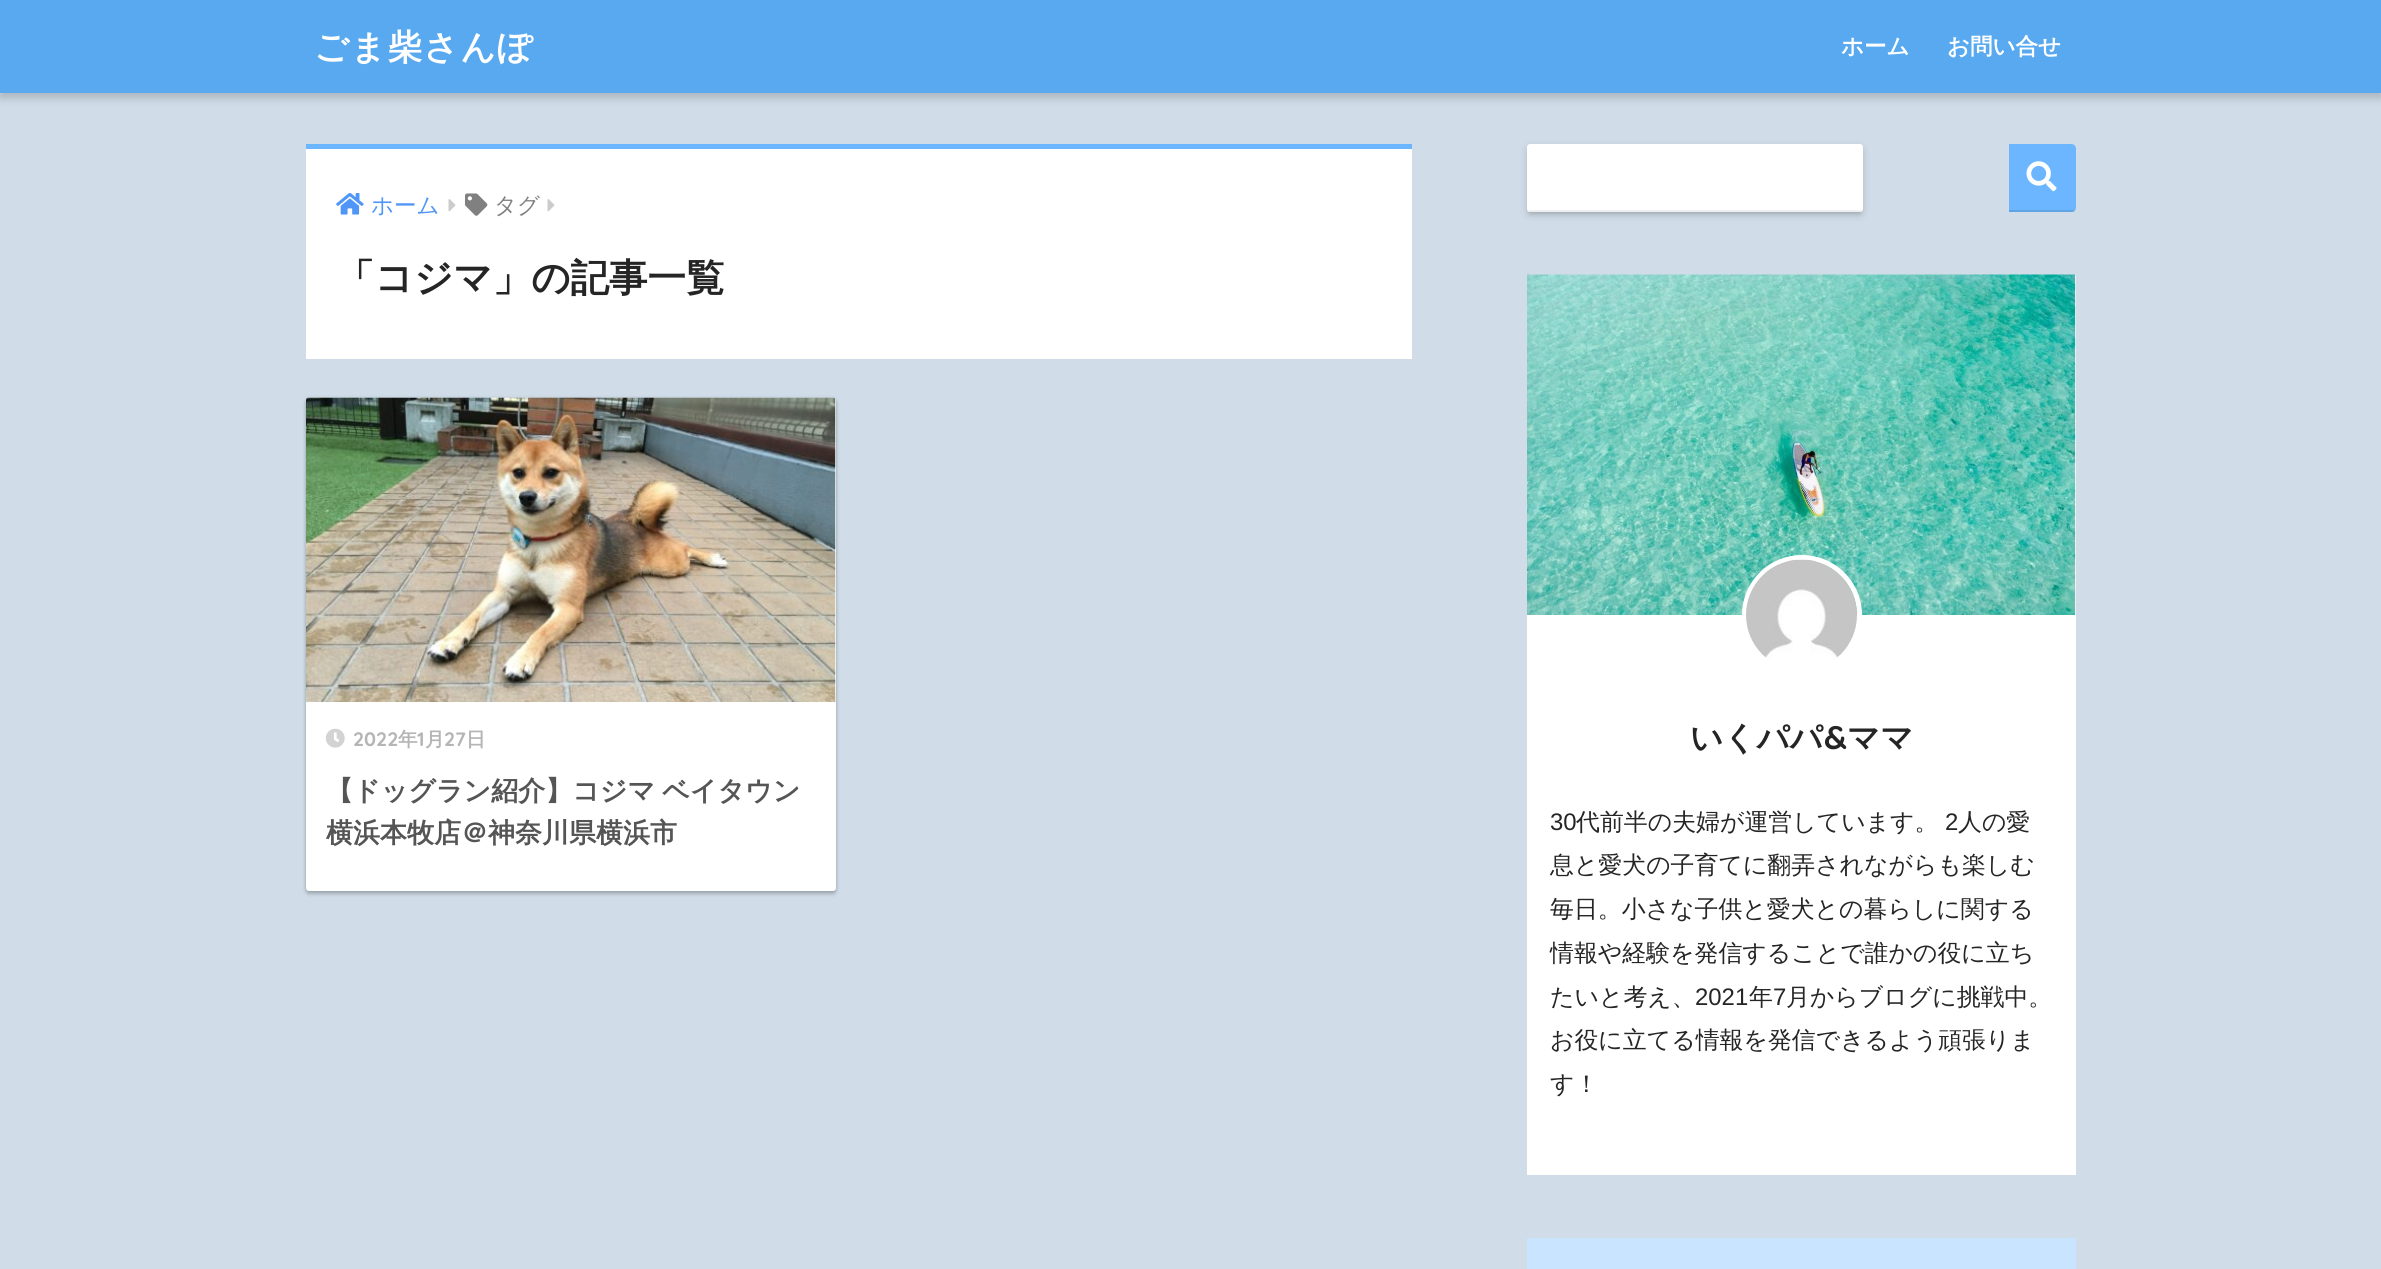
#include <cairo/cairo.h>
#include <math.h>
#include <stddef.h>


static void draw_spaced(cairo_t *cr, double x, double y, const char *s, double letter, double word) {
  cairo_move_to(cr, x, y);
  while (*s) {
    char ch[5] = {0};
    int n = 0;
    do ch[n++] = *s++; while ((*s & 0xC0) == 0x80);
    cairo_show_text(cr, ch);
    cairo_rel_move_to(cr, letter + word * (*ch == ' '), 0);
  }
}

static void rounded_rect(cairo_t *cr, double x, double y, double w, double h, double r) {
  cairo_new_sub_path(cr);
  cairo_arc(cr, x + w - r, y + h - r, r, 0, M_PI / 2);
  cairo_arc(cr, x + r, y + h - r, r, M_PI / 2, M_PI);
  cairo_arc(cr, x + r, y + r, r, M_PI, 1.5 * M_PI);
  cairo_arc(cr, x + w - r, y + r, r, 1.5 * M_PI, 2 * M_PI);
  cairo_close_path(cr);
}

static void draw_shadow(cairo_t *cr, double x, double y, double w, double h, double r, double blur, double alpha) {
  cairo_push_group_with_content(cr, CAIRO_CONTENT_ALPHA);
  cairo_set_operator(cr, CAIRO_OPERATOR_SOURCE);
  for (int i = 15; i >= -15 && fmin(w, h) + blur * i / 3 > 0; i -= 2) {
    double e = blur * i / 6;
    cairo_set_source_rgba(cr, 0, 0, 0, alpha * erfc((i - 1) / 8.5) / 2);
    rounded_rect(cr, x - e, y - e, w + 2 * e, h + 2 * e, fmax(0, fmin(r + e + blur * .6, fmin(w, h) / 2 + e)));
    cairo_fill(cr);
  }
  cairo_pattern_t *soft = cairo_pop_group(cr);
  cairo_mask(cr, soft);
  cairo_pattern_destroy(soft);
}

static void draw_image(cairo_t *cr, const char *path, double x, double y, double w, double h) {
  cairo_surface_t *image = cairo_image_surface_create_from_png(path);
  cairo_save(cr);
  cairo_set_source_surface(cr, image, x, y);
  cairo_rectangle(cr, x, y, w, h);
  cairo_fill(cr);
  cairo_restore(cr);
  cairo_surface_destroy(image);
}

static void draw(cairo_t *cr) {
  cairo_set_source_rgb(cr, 208 / 255.0, 220 / 255.0, 232 / 255.0);
  cairo_paint(cr);
  cairo_set_source_rgb(cr, 0, 0, 0);
  draw_shadow(cr, 0, 5, 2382, 93, 0, 4.5, 0.18);
  cairo_set_source_rgb(cr, 88 / 255.0, 169 / 255.0, 239 / 255.0);
  cairo_rectangle(cr, 0, 0, 2381, 93);
  cairo_fill(cr);
  cairo_set_source_rgb(cr, 1, 1, 1);
  cairo_rectangle(cr, 306, 149, 1106, 210);
  cairo_fill(cr);
  cairo_set_source_rgb(cr, 107 / 255.0, 182 / 255.0, 1);
  cairo_rectangle(cr, 306, 144, 1106, 5);
  cairo_fill(cr);
  draw_image(cr, "images/1.png", 336, 193, 28, 22);
  draw_image(cr, "images/2.png", 448, 199, 8, 13);
  draw_image(cr, "images/3.png", 465, 193, 23, 23);
  draw_image(cr, "images/2.png", 547, 199, 8, 13);
  cairo_set_source_rgb(cr, 0, 0, 0);
  draw_shadow(cr, 306, 401, 530, 493, 3, 2, 0.22);
  draw_shadow(cr, 306, 398, 530, 493, 3, 2, 0.12);
  cairo_set_source_rgb(cr, 1, 1, 1);
  rounded_rect(cr, 306, 398, 530, 493, 3);
  cairo_fill(cr);
  draw_image(cr, "images/4.png", 306, 397, 530, 305);
  draw_image(cr, "images/5.png", 325, 728, 20, 20);
  cairo_set_source_rgb(cr, 0, 0, 0);
  draw_shadow(cr, 1530, 152, 330, 61, 0, 2, 0.15);
  draw_shadow(cr, 1527, 147, 336, 68, 3, 4, 0.15);
  cairo_set_source_rgb(cr, 1, 1, 1);
  rounded_rect(cr, 1527, 144, 336, 68, 3);
  cairo_fill(cr);
  cairo_set_source_rgb(cr, 239 / 255.0, 239 / 255.0, 239 / 255.0);
  cairo_rectangle(cr, 1529, 210, 333, 2);
  cairo_fill(cr);
  cairo_set_source_rgb(cr, 107 / 255.0, 182 / 255.0, 1);
  cairo_new_path(cr);
  cairo_move_to(cr, 2009, 144);
  cairo_line_to(cr, 2071, 144);
  cairo_curve_to(cr, 2074, 144, 2076, 146, 2076, 149);
  cairo_line_to(cr, 2076, 207);
  cairo_curve_to(cr, 2076, 210, 2074, 212, 2071, 212);
  cairo_line_to(cr, 2009, 212);
  cairo_close_path(cr);
  cairo_fill(cr);
  cairo_set_source_rgba(cr, 0, 0, 0, 0.1);
  cairo_rectangle(cr, 2009, 210, 66, 2);
  cairo_fill(cr);
  draw_image(cr, "images/6.png", 2026, 161, 31, 31);
  cairo_set_source_rgb(cr, 1, 1, 1);
  cairo_rectangle(cr, 1527, 615, 549, 560);
  cairo_fill(cr);
  draw_image(cr, "images/7.png", 1527, 274, 549, 341);
  cairo_arc(cr, 1802, 615, 57.5, 0, 2 * M_PI);
  cairo_set_line_width(cr, 5);
  cairo_stroke(cr);
  draw_image(cr, "images/8.png", 1746, 559, 111, 100);
  cairo_set_source_rgb(cr, 200 / 255.0, 228 / 255.0, 1);
  cairo_rectangle(cr, 1527, 1238, 549, 31);
  cairo_fill(cr);
  cairo_select_font_face(cr, "WenQuanYi Zen Hei", CAIRO_FONT_SLANT_NORMAL, CAIRO_FONT_WEIGHT_BOLD);
  cairo_set_font_size(cr, 34.5);
  cairo_set_source_rgb(cr, 1, 1, 1);
  draw_spaced(cr, 314, 59, "ごま柴さんぽ", 1.5, 0);
  cairo_set_font_size(cr, 22.5);
  cairo_move_to(cr, 1841, 54);
  cairo_show_text(cr, "ホーム");
  cairo_move_to(cr, 1947, 54);
  cairo_show_text(cr, "お問い合せ");
  cairo_select_font_face(cr, "WenQuanYi Zen Hei Medium", CAIRO_FONT_SLANT_NORMAL, CAIRO_FONT_WEIGHT_NORMAL);
  cairo_set_source_rgb(cr, 79 / 255.0, 150 / 255.0, 246 / 255.0);
  cairo_move_to(cr, 371, 213);
  cairo_show_text(cr, "ホーム");
  cairo_set_source_rgb(cr, 128 / 255.0, 128 / 255.0, 128 / 255.0);
  cairo_move_to(cr, 494, 213);
  cairo_show_text(cr, "タグ");
  cairo_select_font_face(cr, "WenQuanYi Zen Hei", CAIRO_FONT_SLANT_NORMAL, CAIRO_FONT_WEIGHT_BOLD);
  cairo_set_font_size(cr, 38.5);
  cairo_set_source_rgb(cr, 37 / 255.0, 37 / 255.0, 37 / 255.0);
  cairo_move_to(cr, 336, 291);
  cairo_show_text(cr, "「コジマ」の記事一覧");
  cairo_select_font_face(cr, "Quicksand", CAIRO_FONT_SLANT_NORMAL, CAIRO_FONT_WEIGHT_BOLD);
  cairo_set_font_size(cr, 19.5);
  cairo_set_source_rgb(cr, 181 / 255.0, 181 / 255.0, 181 / 255.0);
  cairo_move_to(cr, 353, 746);
  cairo_show_text(cr, "2022");
  cairo_select_font_face(cr, "WenQuanYi Zen Hei", CAIRO_FONT_SLANT_NORMAL, CAIRO_FONT_WEIGHT_BOLD);
  cairo_move_to(cr, 398, 746);
  cairo_show_text(cr, "年");
  cairo_select_font_face(cr, "Quicksand", CAIRO_FONT_SLANT_NORMAL, CAIRO_FONT_WEIGHT_BOLD);
  cairo_move_to(cr, 417, 746);
  cairo_show_text(cr, "1");
  cairo_select_font_face(cr, "WenQuanYi Zen Hei", CAIRO_FONT_SLANT_NORMAL, CAIRO_FONT_WEIGHT_BOLD);
  cairo_move_to(cr, 425, 746);
  cairo_show_text(cr, "月");
  cairo_select_font_face(cr, "Quicksand", CAIRO_FONT_SLANT_NORMAL, CAIRO_FONT_WEIGHT_BOLD);
  cairo_move_to(cr, 444, 746);
  cairo_show_text(cr, "27");
  cairo_select_font_face(cr, "WenQuanYi Zen Hei", CAIRO_FONT_SLANT_NORMAL, CAIRO_FONT_WEIGHT_BOLD);
  cairo_move_to(cr, 466, 746);
  cairo_show_text(cr, "日");
  cairo_set_font_size(cr, 27);
  cairo_set_source_rgb(cr, 85 / 255.0, 85 / 255.0, 85 / 255.0);
  draw_spaced(cr, 326, 800, "【ドッグラン紹介】コジマ ベイタウン", 0, -1);
  cairo_move_to(cr, 326, 842);
  cairo_show_text(cr, "横浜本牧店＠神奈川県横浜市");
  cairo_set_font_size(cr, 32.5);
  cairo_set_source_rgb(cr, 37 / 255.0, 37 / 255.0, 37 / 255.0);
  cairo_move_to(cr, 1690, 749);
  cairo_show_text(cr, "いくパパ");
  cairo_select_font_face(cr, "Quicksand", CAIRO_FONT_SLANT_NORMAL, CAIRO_FONT_WEIGHT_BOLD);
  cairo_move_to(cr, 1824, 749);
  cairo_show_text(cr, "&");
  cairo_select_font_face(cr, "WenQuanYi Zen Hei", CAIRO_FONT_SLANT_NORMAL, CAIRO_FONT_WEIGHT_BOLD);
  cairo_move_to(cr, 1847, 749);
  cairo_show_text(cr, "ママ");
  cairo_select_font_face(cr, "Liberation Sans", CAIRO_FONT_SLANT_NORMAL, CAIRO_FONT_WEIGHT_NORMAL);
  cairo_set_font_size(cr, 23.9);
  cairo_move_to(cr, 1550, 830);
  cairo_show_text(cr, "30");
  cairo_select_font_face(cr, "WenQuanYi Zen Hei Medium", CAIRO_FONT_SLANT_NORMAL, CAIRO_FONT_WEIGHT_NORMAL);
  cairo_move_to(cr, 1576, 830);
  cairo_show_text(cr, "代前半の夫婦が運営しています。");
  cairo_select_font_face(cr, "Liberation Sans", CAIRO_FONT_SLANT_NORMAL, CAIRO_FONT_WEIGHT_NORMAL);
  cairo_move_to(cr, 1945, 830);
  cairo_show_text(cr, "2");
  cairo_select_font_face(cr, "WenQuanYi Zen Hei Medium", CAIRO_FONT_SLANT_NORMAL, CAIRO_FONT_WEIGHT_NORMAL);
  cairo_move_to(cr, 1958, 830);
  cairo_show_text(cr, "人の愛");
  cairo_move_to(cr, 1550, 873);
  cairo_show_text(cr, "息と愛犬の子育てに翻弄されながらも楽しむ");
  cairo_move_to(cr, 1550, 917);
  cairo_show_text(cr, "毎日。小さな子供と愛犬との暮らしに関する");
  cairo_move_to(cr, 1550, 961);
  cairo_show_text(cr, "情報や経験を発信することで誰かの役に立ち");
  cairo_move_to(cr, 1550, 1005);
  cairo_show_text(cr, "たいと考え、");
  cairo_select_font_face(cr, "Liberation Sans", CAIRO_FONT_SLANT_NORMAL, CAIRO_FONT_WEIGHT_NORMAL);
  cairo_move_to(cr, 1695, 1005);
  cairo_show_text(cr, "2021");
  cairo_select_font_face(cr, "WenQuanYi Zen Hei Medium", CAIRO_FONT_SLANT_NORMAL, CAIRO_FONT_WEIGHT_NORMAL);
  cairo_move_to(cr, 1749, 1005);
  cairo_show_text(cr, "年");
  cairo_select_font_face(cr, "Liberation Sans", CAIRO_FONT_SLANT_NORMAL, CAIRO_FONT_WEIGHT_NORMAL);
  cairo_move_to(cr, 1773, 1005);
  cairo_show_text(cr, "7");
  cairo_select_font_face(cr, "WenQuanYi Zen Hei Medium", CAIRO_FONT_SLANT_NORMAL, CAIRO_FONT_WEIGHT_NORMAL);
  cairo_move_to(cr, 1786, 1005);
  cairo_show_text(cr, "月からブログに挑戦中。");
  cairo_move_to(cr, 1550, 1048);
  cairo_show_text(cr, "お役に立てる情報を発信できるよう頑張りま");
  cairo_move_to(cr, 1550, 1092);
  cairo_show_text(cr, "す！");
}

int main(void) {
  cairo_surface_t *surface = cairo_image_surface_create(CAIRO_FORMAT_RGB24, 2381, 1269);
  cairo_t *cr = cairo_create(surface);
  cairo_font_options_t *options = cairo_font_options_create();
  cairo_font_options_set_hint_metrics(options, CAIRO_HINT_METRICS_OFF);
  cairo_font_options_set_hint_style(options, CAIRO_HINT_STYLE_NONE);
  cairo_set_font_options(cr, options);
  cairo_set_miter_limit(cr, 4);
  draw(cr);
  cairo_surface_write_to_png(surface, "out.png");
  cairo_font_options_destroy(options);
  cairo_destroy(cr);
  cairo_surface_destroy(surface);
  return 0;
}
